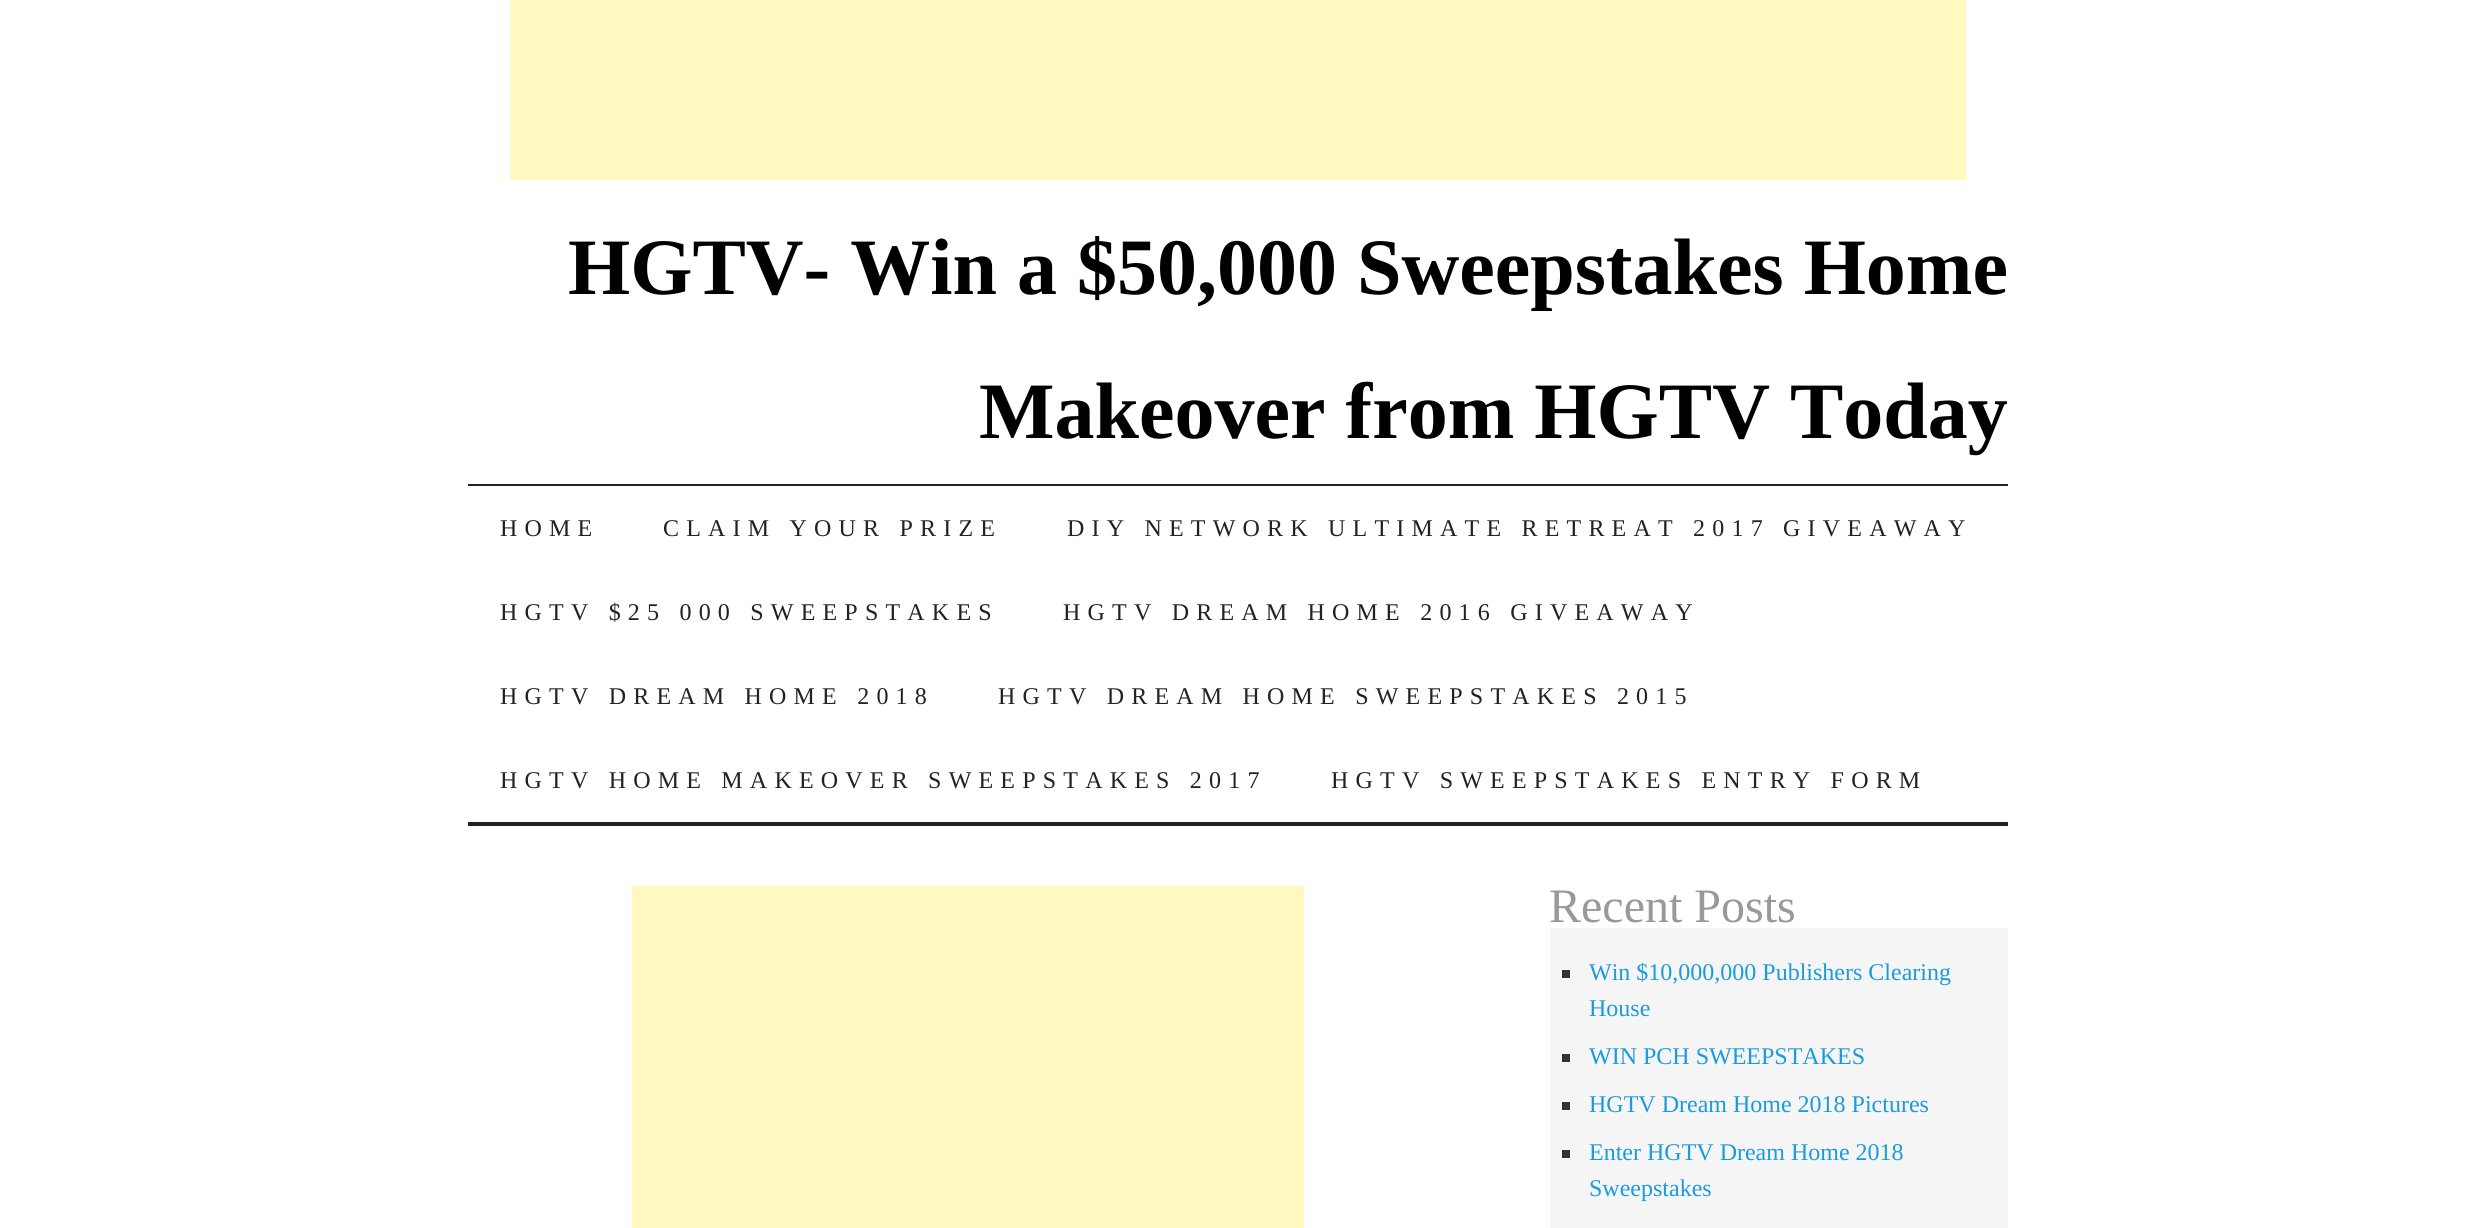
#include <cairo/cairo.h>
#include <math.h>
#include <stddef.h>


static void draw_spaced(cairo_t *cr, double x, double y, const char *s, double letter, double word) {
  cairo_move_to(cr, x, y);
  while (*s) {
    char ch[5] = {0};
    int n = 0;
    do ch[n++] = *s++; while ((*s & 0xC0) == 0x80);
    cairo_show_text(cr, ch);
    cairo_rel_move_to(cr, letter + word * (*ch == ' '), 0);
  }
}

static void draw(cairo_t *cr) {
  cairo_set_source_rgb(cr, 1, 1, 1);
  cairo_paint(cr);
  cairo_set_source_rgb(cr, 1, 249 / 255.0, 192 / 255.0);
  cairo_rectangle(cr, 510, 0, 1456, 180);
  cairo_fill(cr);
  cairo_set_source_rgb(cr, 34 / 255.0, 34 / 255.0, 34 / 255.0);
  cairo_rectangle(cr, 468, 484, 1540, 2);
  cairo_fill(cr);
  cairo_rectangle(cr, 468, 822, 1540, 4);
  cairo_fill(cr);
  cairo_set_source_rgb(cr, 1, 249 / 255.0, 192 / 255.0);
  cairo_rectangle(cr, 632, 886, 672, 342);
  cairo_fill(cr);
  cairo_set_source_rgb(cr, 245 / 255.0, 245 / 255.0, 245 / 255.0);
  cairo_rectangle(cr, 1550, 928, 458, 300);
  cairo_fill(cr);
  cairo_set_source_rgb(cr, 51 / 255.0, 51 / 255.0, 51 / 255.0);
  cairo_rectangle(cr, 1562, 970, 8, 8);
  cairo_fill(cr);
  cairo_rectangle(cr, 1562, 1054, 8, 8);
  cairo_fill(cr);
  cairo_rectangle(cr, 1562, 1102, 8, 8);
  cairo_fill(cr);
  cairo_rectangle(cr, 1562, 1150, 8, 8);
  cairo_fill(cr);
  cairo_select_font_face(cr, "Liberation Serif", CAIRO_FONT_SLANT_NORMAL, CAIRO_FONT_WEIGHT_BOLD);
  cairo_set_font_size(cr, 80);
  cairo_set_source_rgb(cr, 0, 0, 0);
  cairo_move_to(cr, 568, 294);
  cairo_show_text(cr, "HGTV- Win a $50,000 Sweepstakes Home");
  cairo_move_to(cr, 979, 438);
  cairo_show_text(cr, "Makeover from HGTV Today");
  cairo_select_font_face(cr, "Liberation Serif", CAIRO_FONT_SLANT_NORMAL, CAIRO_FONT_WEIGHT_NORMAL);
  cairo_set_font_size(cr, 24);
  cairo_set_source_rgb(cr, 34 / 255.0, 34 / 255.0, 34 / 255.0);
  draw_spaced(cr, 500, 536, "HOME", 7.2, 0);
  draw_spaced(cr, 663, 536, "CLAIM YOUR PRIZE", 7.2, 0);
  draw_spaced(cr, 1067, 536, "DIY NETWORK ULTIMATE RETREAT 2017 GIVEAWAY", 7.2, 0);
  draw_spaced(cr, 500, 620, "HGTV $25 000 SWEEPSTAKES", 7.2, 0);
  draw_spaced(cr, 1063, 620, "HGTV DREAM HOME 2016 GIVEAWAY", 7.2, 0);
  draw_spaced(cr, 500, 704, "HGTV DREAM HOME 2018", 7.2, 0);
  draw_spaced(cr, 998, 704, "HGTV DREAM HOME SWEEPSTAKES 2015", 7.2, 0);
  draw_spaced(cr, 500, 788, "HGTV HOME MAKEOVER SWEEPSTAKES 2017", 7.2, 0);
  draw_spaced(cr, 1331, 788, "HGTV SWEEPSTAKES ENTRY FORM", 7.2, 0);
  cairo_set_font_size(cr, 48);
  cairo_set_source_rgb(cr, 153 / 255.0, 153 / 255.0, 153 / 255.0);
  cairo_move_to(cr, 1549, 922);
  cairo_show_text(cr, "Recent Posts");
  cairo_set_font_size(cr, 24);
  cairo_set_source_rgb(cr, 28 / 255.0, 155 / 255.0, 220 / 255.0);
  cairo_move_to(cr, 1589, 980);
  cairo_show_text(cr, "Win $10,000,000 Publishers Clearing");
  cairo_move_to(cr, 1589, 1016);
  cairo_show_text(cr, "House");
  cairo_move_to(cr, 1589, 1064);
  cairo_show_text(cr, "WIN PCH SWEEPSTAKES");
  cairo_move_to(cr, 1589, 1112);
  cairo_show_text(cr, "HGTV Dream Home 2018 Pictures");
  cairo_move_to(cr, 1589, 1160);
  cairo_show_text(cr, "Enter HGTV Dream Home 2018");
  cairo_move_to(cr, 1589, 1196);
  cairo_show_text(cr, "Sweepstakes");
}

int main(void) {
  cairo_surface_t *surface = cairo_image_surface_create(CAIRO_FORMAT_RGB24, 2476, 1228);
  cairo_t *cr = cairo_create(surface);
  cairo_font_options_t *options = cairo_font_options_create();
  cairo_font_options_set_hint_metrics(options, CAIRO_HINT_METRICS_OFF);
  cairo_font_options_set_hint_style(options, CAIRO_HINT_STYLE_NONE);
  cairo_set_font_options(cr, options);
  cairo_set_miter_limit(cr, 4);
  draw(cr);
  cairo_surface_write_to_png(surface, "out.png");
  cairo_font_options_destroy(options);
  cairo_destroy(cr);
  cairo_surface_destroy(surface);
  return 0;
}
